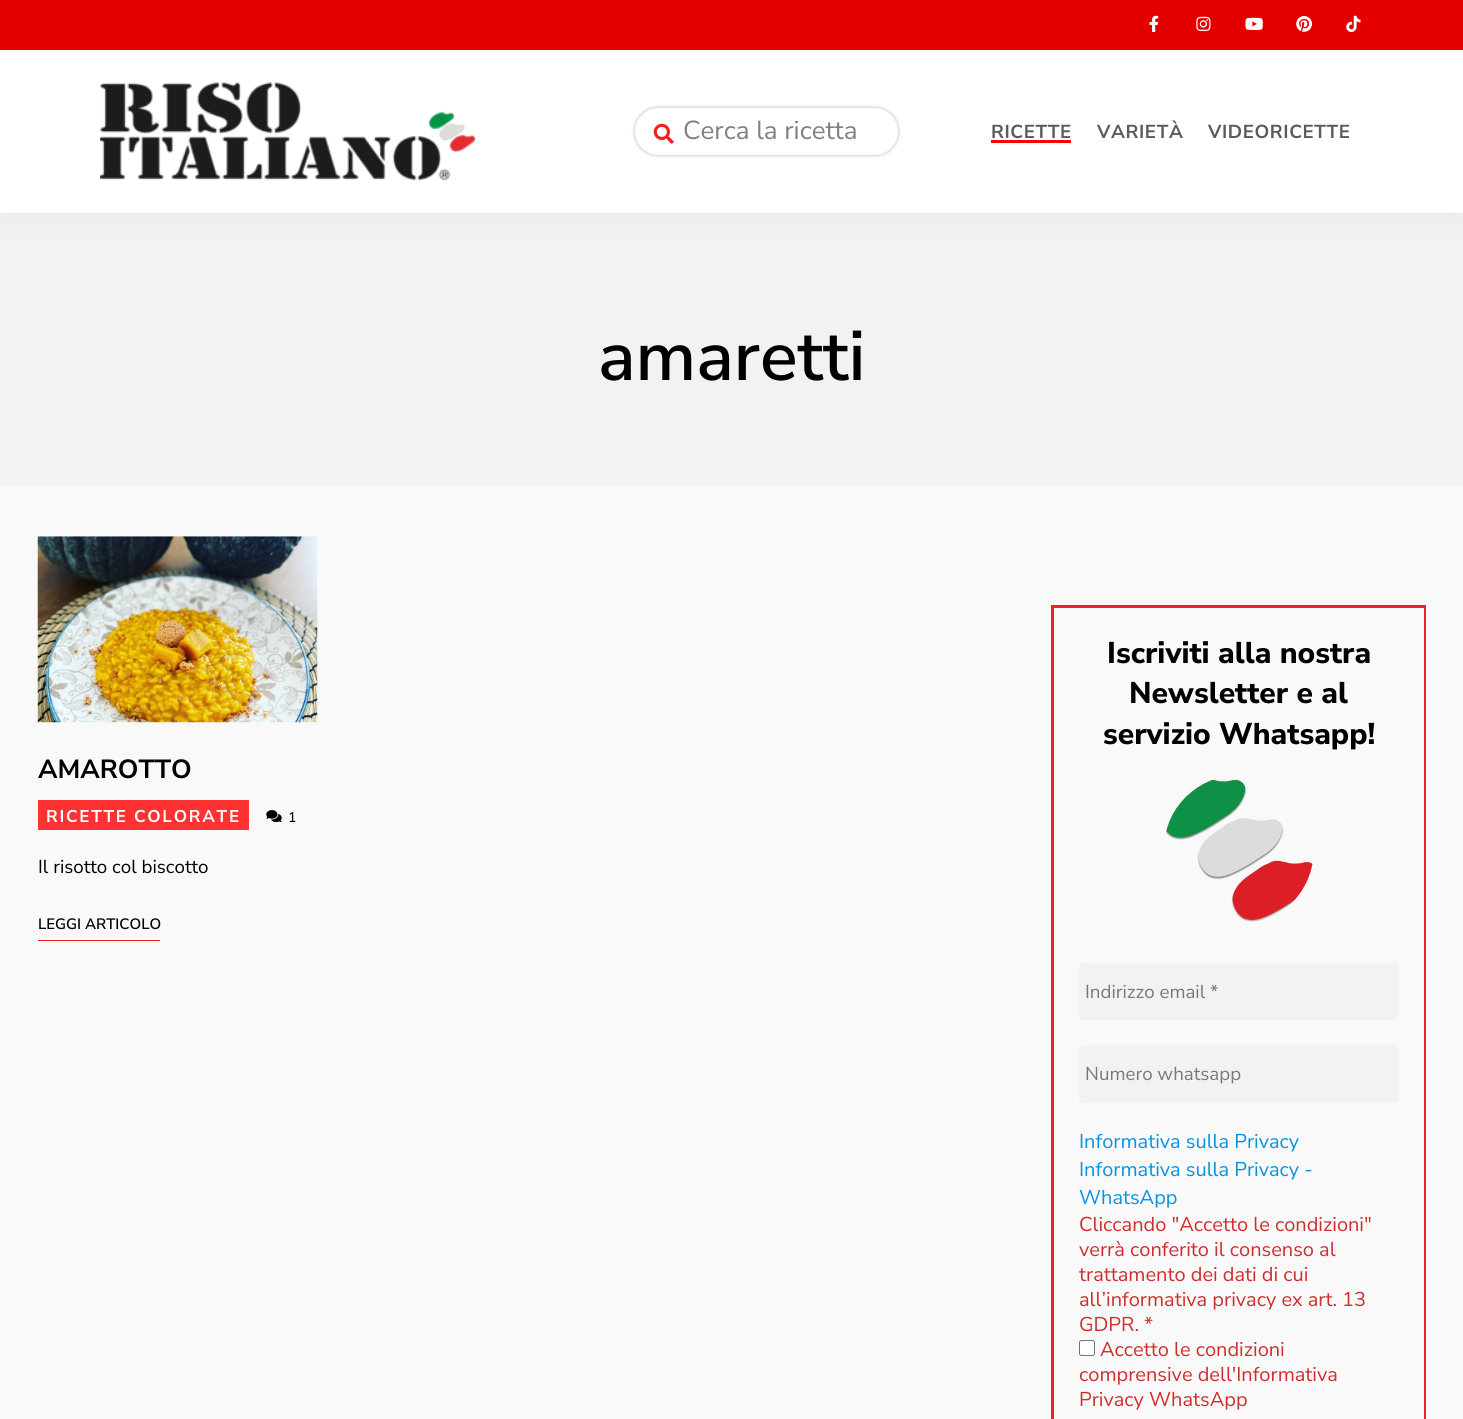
#include <cairo/cairo.h>
#include <math.h>
#include <stddef.h>


static void draw_spaced(cairo_t *cr, double x, double y, const char *s, double letter, double word) {
  cairo_move_to(cr, x, y);
  while (*s) {
    char ch[5] = {0};
    int n = 0;
    do ch[n++] = *s++; while ((*s & 0xC0) == 0x80);
    cairo_show_text(cr, ch);
    cairo_rel_move_to(cr, letter + word * (*ch == ' '), 0);
  }
}

static void rounded_rect(cairo_t *cr, double x, double y, double w, double h, double r) {
  cairo_new_sub_path(cr);
  cairo_arc(cr, x + w - r, y + h - r, r, 0, M_PI / 2);
  cairo_arc(cr, x + r, y + h - r, r, M_PI / 2, M_PI);
  cairo_arc(cr, x + r, y + r, r, M_PI, 1.5 * M_PI);
  cairo_arc(cr, x + w - r, y + r, r, 1.5 * M_PI, 2 * M_PI);
  cairo_close_path(cr);
}

static void draw_shadow(cairo_t *cr, double x, double y, double w, double h, double r, double blur, double alpha) {
  cairo_push_group_with_content(cr, CAIRO_CONTENT_ALPHA);
  cairo_set_operator(cr, CAIRO_OPERATOR_SOURCE);
  for (int i = 15; i >= -15 && fmin(w, h) + blur * i / 3 > 0; i -= 2) {
    double e = blur * i / 6;
    cairo_set_source_rgba(cr, 0, 0, 0, alpha * erfc((i - 1) / 8.5) / 2);
    rounded_rect(cr, x - e, y - e, w + 2 * e, h + 2 * e, fmax(0, fmin(r + e + blur * .6, fmin(w, h) / 2 + e)));
    cairo_fill(cr);
  }
  cairo_pattern_t *soft = cairo_pop_group(cr);
  cairo_mask(cr, soft);
  cairo_pattern_destroy(soft);
}

static void draw_image(cairo_t *cr, const char *path, double x, double y, double w, double h) {
  cairo_surface_t *image = cairo_image_surface_create_from_png(path);
  cairo_save(cr);
  cairo_set_source_surface(cr, image, x, y);
  cairo_rectangle(cr, x, y, w, h);
  cairo_fill(cr);
  cairo_restore(cr);
  cairo_surface_destroy(image);
}

static void draw(cairo_t *cr) {
  cairo_set_source_rgb(cr, 249 / 255.0, 249 / 255.0, 249 / 255.0);
  cairo_paint(cr);
  cairo_set_source_rgb(cr, 242 / 255.0, 242 / 255.0, 242 / 255.0);
  cairo_rectangle(cr, 0, 213, 1463, 273);
  cairo_fill(cr);
  cairo_set_source_rgb(cr, 0, 0, 0);
  draw_shadow(cr, 8, 18, 1448, 197, 0, 19, 0.05);
  cairo_set_source_rgb(cr, 1, 1, 1);
  cairo_rectangle(cr, 0, 50, 1463, 163);
  cairo_fill(cr);
  cairo_set_source_rgb(cr, 229 / 255.0, 0, 0);
  cairo_rectangle(cr, 0, 0, 1463, 50);
  cairo_fill(cr);
  draw_image(cr, "images/1.png", 1149, 15, 10, 17);
  draw_image(cr, "images/2.png", 1196, 16, 15, 15);
  draw_image(cr, "images/3.png", 1245, 17, 18, 13);
  draw_image(cr, "images/4.png", 1296, 16, 16, 16);
  draw_image(cr, "images/5.png", 1346, 15, 15, 17);
  draw_image(cr, "images/6.png", 100, 82, 375, 99);
  cairo_set_source_rgb(cr, 0, 0, 0);
  draw_shadow(cr, 635, 108, 263, 47, 23.5, 2, 0.3);
  cairo_set_source_rgb(cr, 1, 1, 1);
  rounded_rect(cr, 635, 108, 263, 47, 23.5);
  cairo_fill(cr);
  draw_image(cr, "images/7.png", 653, 123, 21, 21);
  cairo_set_source_rgb(cr, 1, 0, 0);
  cairo_rectangle(cr, 991, 140, 80, 3);
  cairo_fill(cr);
  draw_image(cr, "images/8.png", 37, 536, 281, 187);
  cairo_set_source_rgb(cr, 254 / 255.0, 50 / 255.0, 50 / 255.0);
  cairo_rectangle(cr, 38, 800, 211, 30);
  cairo_fill(cr);
  draw_image(cr, "images/9.png", 266, 810, 16, 13);
  cairo_set_source_rgb(cr, 239 / 255.0, 33 / 255.0, 33 / 255.0);
  cairo_rectangle(cr, 38, 940, 122, 1);
  cairo_fill(cr);
  cairo_rectangle(cr, 1052.5, 606.5, 372, 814);
  cairo_set_line_width(cr, 3);
  cairo_stroke(cr);
  cairo_set_source_rgb(cr, 249 / 255.0, 249 / 255.0, 249 / 255.0);
  cairo_rectangle(cr, 1423, 608, 1, 811);
  cairo_fill(cr);
  draw_image(cr, "images/10.png", 1166, 779, 147, 143);
  cairo_set_source_rgb(cr, 242 / 255.0, 242 / 255.0, 242 / 255.0);
  rounded_rect(cr, 1079, 963, 320, 57, 5);
  cairo_fill(cr);
  rounded_rect(cr, 1079, 1045, 320, 58, 5);
  cairo_fill(cr);
  cairo_set_source_rgb(cr, 1, 1, 1);
  rounded_rect(cr, 1079.5, 1340.5, 15, 15, 2);
  cairo_fill_preserve(cr);
  cairo_set_source_rgb(cr, 118 / 255.0, 118 / 255.0, 118 / 255.0);
  cairo_set_line_width(cr, 1);
  cairo_stroke(cr);
  cairo_select_font_face(cr, "Nunito Sans", CAIRO_FONT_SLANT_NORMAL, CAIRO_FONT_WEIGHT_NORMAL);
  cairo_set_font_size(cr, 26);
  cairo_set_source_rgb(cr, 128 / 255.0, 128 / 255.0, 128 / 255.0);
  cairo_move_to(cr, 683, 139);
  cairo_show_text(cr, "Cerca la ricetta");
  cairo_select_font_face(cr, "Nunito Sans", CAIRO_FONT_SLANT_NORMAL, CAIRO_FONT_WEIGHT_BOLD);
  cairo_set_font_size(cr, 18.75);
  cairo_set_source_rgb(cr, 91 / 255.0, 91 / 255.0, 91 / 255.0);
  draw_spaced(cr, 991, 138, "RICETTE", 0.6, 0);
  draw_spaced(cr, 1097, 138, "VARIETÀ", 0.6, 0);
  draw_spaced(cr, 1208, 138, "VIDEORICETTE", 0.6, 0);
  cairo_select_font_face(cr, "Nunito Sans SemiBold", CAIRO_FONT_SLANT_NORMAL, CAIRO_FONT_WEIGHT_NORMAL);
  cairo_set_font_size(cr, 70);
  cairo_set_source_rgb(cr, 0, 0, 0);
  cairo_move_to(cr, 598, 380);
  cairo_show_text(cr, "amaretti");
  cairo_select_font_face(cr, "Nunito Sans", CAIRO_FONT_SLANT_NORMAL, CAIRO_FONT_WEIGHT_BOLD);
  cairo_set_font_size(cr, 26.25);
  cairo_move_to(cr, 38, 778);
  cairo_show_text(cr, "AMAROTTO");
  cairo_set_font_size(cr, 17);
  cairo_set_source_rgb(cr, 1, 1, 1);
  draw_spaced(cr, 46, 822, "RICETTE COLORATE", 1.75, 0);
  cairo_select_font_face(cr, "Nunito Sans Medium", CAIRO_FONT_SLANT_NORMAL, CAIRO_FONT_WEIGHT_NORMAL);
  cairo_set_font_size(cr, 14);
  cairo_set_source_rgb(cr, 0, 0, 0);
  draw_spaced(cr, 288, 822, "1", 1, 0);
  cairo_select_font_face(cr, "Nunito Sans", CAIRO_FONT_SLANT_NORMAL, CAIRO_FONT_WEIGHT_NORMAL);
  cairo_set_font_size(cr, 18.75);
  cairo_move_to(cr, 38, 873);
  cairo_show_text(cr, "Il risotto col biscotto");
  cairo_select_font_face(cr, "Nunito Sans SemiBold", CAIRO_FONT_SLANT_NORMAL, CAIRO_FONT_WEIGHT_NORMAL);
  cairo_set_font_size(cr, 15);
  cairo_move_to(cr, 38, 929);
  cairo_show_text(cr, "LEGGI ARTICOLO");
  cairo_select_font_face(cr, "Nunito Sans ExtraBold", CAIRO_FONT_SLANT_NORMAL, CAIRO_FONT_WEIGHT_NORMAL);
  cairo_set_font_size(cr, 30);
  cairo_move_to(cr, 1107, 663);
  cairo_show_text(cr, "Iscriviti alla nostra");
  cairo_move_to(cr, 1129, 703);
  cairo_show_text(cr, "Newsletter e al");
  cairo_move_to(cr, 1103, 744);
  cairo_show_text(cr, "servizio Whatsapp!");
  cairo_select_font_face(cr, "Nunito Sans", CAIRO_FONT_SLANT_NORMAL, CAIRO_FONT_WEIGHT_NORMAL);
  cairo_set_font_size(cr, 18.75);
  cairo_set_source_rgb(cr, 121 / 255.0, 121 / 255.0, 121 / 255.0);
  cairo_move_to(cr, 1085, 998);
  cairo_show_text(cr, "Indirizzo email *");
  cairo_move_to(cr, 1085, 1080);
  cairo_show_text(cr, "Numero whatsapp");
  cairo_set_font_size(cr, 20);
  cairo_set_source_rgb(cr, 6 / 255.0, 147 / 255.0, 227 / 255.0);
  cairo_move_to(cr, 1079, 1148);
  cairo_show_text(cr, "Informativa sulla Privacy");
  cairo_move_to(cr, 1079, 1176);
  cairo_show_text(cr, "Informativa sulla Privacy -");
  cairo_move_to(cr, 1079, 1204);
  cairo_show_text(cr, "WhatsApp");
  cairo_set_source_rgb(cr, 207 / 255.0, 46 / 255.0, 46 / 255.0);
  cairo_move_to(cr, 1079, 1231);
  cairo_show_text(cr, "Cliccando \"Accetto le condizioni\"");
  cairo_move_to(cr, 1079, 1256);
  cairo_show_text(cr, "verrà conferito il consenso al");
  cairo_move_to(cr, 1079, 1281);
  cairo_show_text(cr, "trattamento dei dati di cui");
  cairo_move_to(cr, 1079, 1306);
  cairo_show_text(cr, "all’informativa privacy ex art. 13");
  cairo_move_to(cr, 1079, 1331);
  cairo_show_text(cr, "GDPR. *");
  cairo_move_to(cr, 1100, 1356);
  cairo_show_text(cr, "Accetto le condizioni");
  cairo_move_to(cr, 1079, 1381);
  cairo_show_text(cr, "comprensive dell'Informativa");
  cairo_move_to(cr, 1079, 1406);
  cairo_show_text(cr, "Privacy WhatsApp");
}

int main(void) {
  cairo_surface_t *surface = cairo_image_surface_create(CAIRO_FORMAT_RGB24, 1463, 1419);
  cairo_t *cr = cairo_create(surface);
  cairo_font_options_t *options = cairo_font_options_create();
  cairo_font_options_set_hint_metrics(options, CAIRO_HINT_METRICS_OFF);
  cairo_font_options_set_hint_style(options, CAIRO_HINT_STYLE_NONE);
  cairo_set_font_options(cr, options);
  cairo_set_miter_limit(cr, 4);
  draw(cr);
  cairo_surface_write_to_png(surface, "out.png");
  cairo_font_options_destroy(options);
  cairo_destroy(cr);
  cairo_surface_destroy(surface);
  return 0;
}
